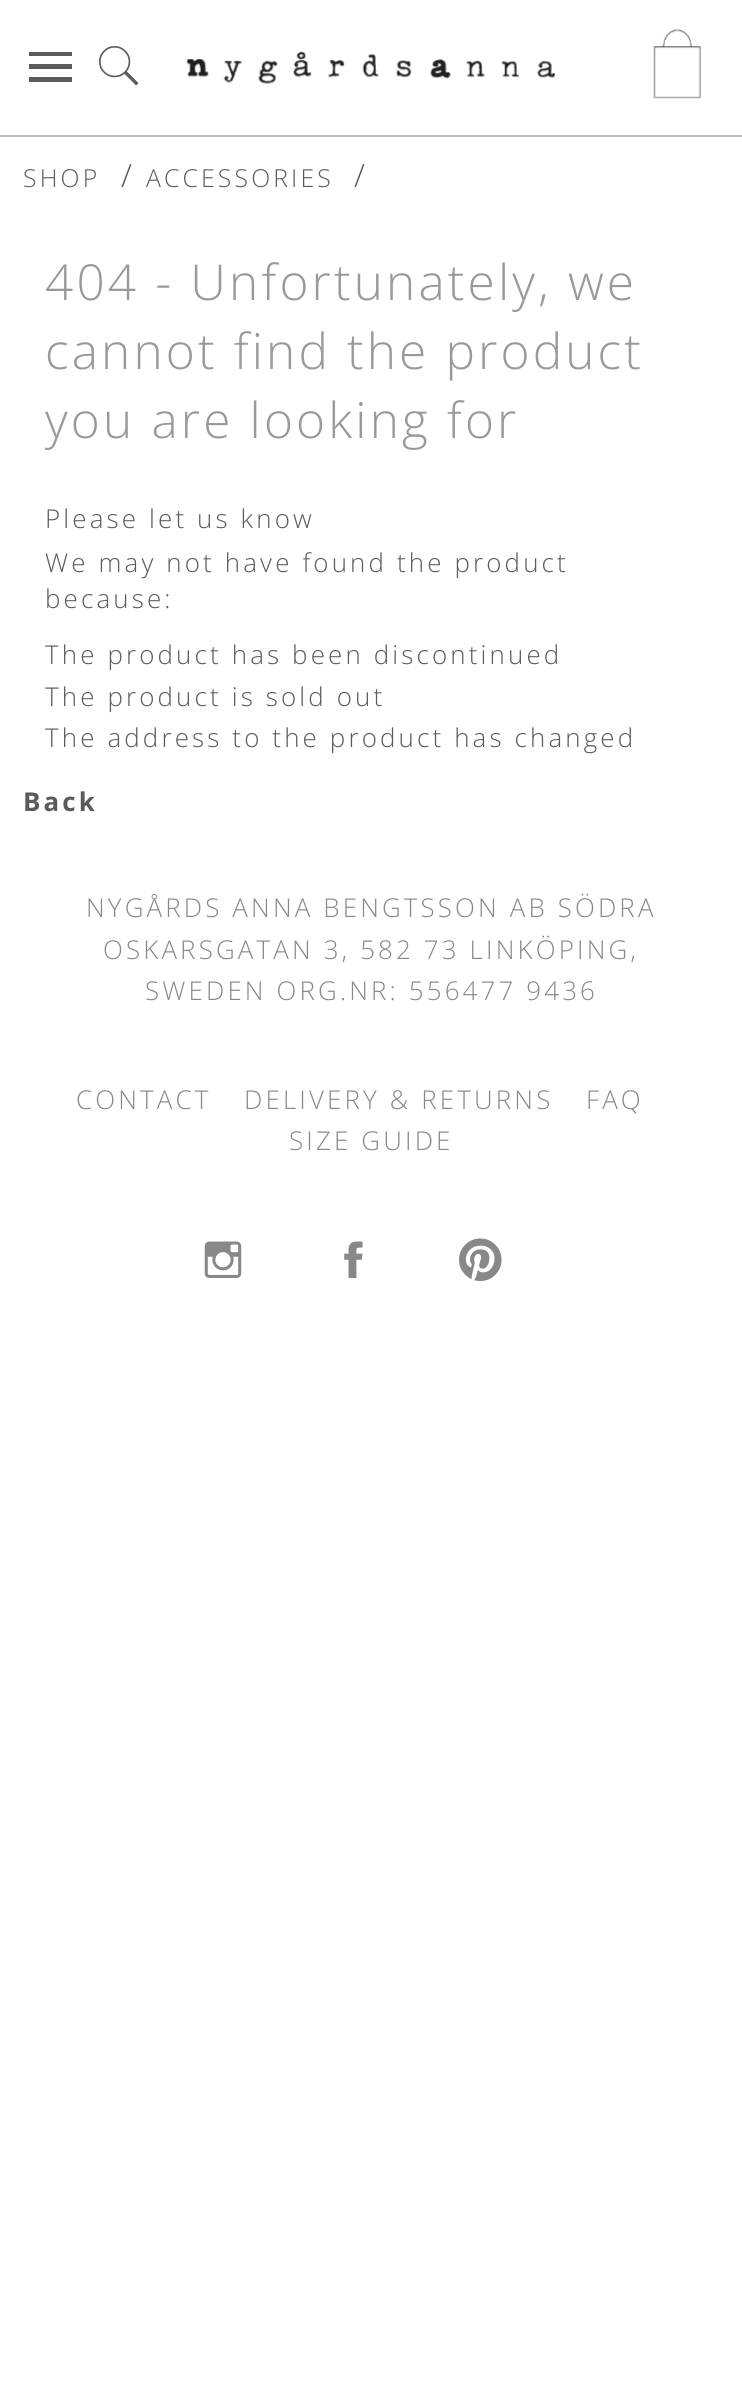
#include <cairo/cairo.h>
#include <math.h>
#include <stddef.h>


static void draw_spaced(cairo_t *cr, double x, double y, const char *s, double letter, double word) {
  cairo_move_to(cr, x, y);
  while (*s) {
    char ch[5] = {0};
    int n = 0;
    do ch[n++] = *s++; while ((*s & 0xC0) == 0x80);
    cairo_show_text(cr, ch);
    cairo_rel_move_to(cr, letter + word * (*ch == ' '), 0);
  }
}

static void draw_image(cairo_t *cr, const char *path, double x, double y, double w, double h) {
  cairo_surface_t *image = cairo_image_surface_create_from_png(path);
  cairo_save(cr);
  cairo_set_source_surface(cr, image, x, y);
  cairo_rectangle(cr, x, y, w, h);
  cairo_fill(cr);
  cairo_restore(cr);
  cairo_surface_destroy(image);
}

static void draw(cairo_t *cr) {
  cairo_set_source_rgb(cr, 1, 1, 1);
  cairo_paint(cr);
  cairo_set_source_rgb(cr, 187 / 255.0, 187 / 255.0, 187 / 255.0);
  cairo_rectangle(cr, 0, 135, 742, 2);
  cairo_fill(cr);
  cairo_set_source_rgb(cr, 90 / 255.0, 91 / 255.0, 94 / 255.0);
  cairo_new_path(cr);
  cairo_move_to(cr, 29, 69);
  cairo_line_to(cr, 29, 64);
  cairo_line_to(cr, 72, 64);
  cairo_line_to(cr, 72, 69);
  cairo_close_path(cr);
  cairo_move_to(cr, 29, 56);
  cairo_line_to(cr, 29, 52);
  cairo_line_to(cr, 72, 52);
  cairo_line_to(cr, 72, 56);
  cairo_close_path(cr);
  cairo_move_to(cr, 29, 82);
  cairo_line_to(cr, 29, 77);
  cairo_line_to(cr, 72, 77);
  cairo_line_to(cr, 72, 82);
  cairo_close_path(cr);
  cairo_fill(cr);
  draw_image(cr, "images/1.png", 99, 46, 40, 40);
  draw_image(cr, "images/2.png", 186, 51, 369, 34);
  draw_image(cr, "images/3.png", 653, 29, 48, 70);
  draw_image(cr, "images/4.png", 204, 1241, 38, 37);
  draw_image(cr, "images/5.png", 344, 1241, 19, 37);
  draw_image(cr, "images/6.png", 459, 1238, 43, 43);
  cairo_select_font_face(cr, "Open Sans Light", CAIRO_FONT_SLANT_NORMAL, CAIRO_FONT_WEIGHT_NORMAL);
  cairo_set_font_size(cr, 24.75);
  draw_spaced(cr, 23, 187, "SHOP", 3.15, 0);
  cairo_set_font_size(cr, 32);
  draw_spaced(cr, 121, 187, "/", 3.15, 0);
  cairo_set_font_size(cr, 24.75);
  draw_spaced(cr, 146, 187, "ACCESSORIES", 3.15, 0);
  cairo_set_font_size(cr, 32);
  draw_spaced(cr, 354, 187, "/", 3.15, 0);
  cairo_set_font_size(cr, 49.5);
  cairo_set_source_rgb(cr, 153 / 255.0, 153 / 255.0, 153 / 255.0);
  draw_spaced(cr, 45, 300, "404 - Unfortunately, we", 3.15, 0);
  draw_spaced(cr, 45, 369, "cannot find the product", 3.15, 0);
  draw_spaced(cr, 45, 438, "you are looking for", 3.15, 0);
  cairo_set_font_size(cr, 25.9);
  cairo_set_source_rgb(cr, 90 / 255.0, 91 / 255.0, 94 / 255.0);
  draw_spaced(cr, 45, 528, "Please let us know", 3.15, 0);
  draw_spaced(cr, 45, 572, "We may not have found the product", 3.15, 0);
  draw_spaced(cr, 45, 608, "because:", 3.15, 0);
  draw_spaced(cr, 45, 664, "The product has been discontinued", 3.15, 0);
  draw_spaced(cr, 45, 706, "The product is sold out", 3.15, 0);
  draw_spaced(cr, 45, 747, "The address to the product has changed", 3.15, 0);
  cairo_select_font_face(cr, "Open Sans", CAIRO_FONT_SLANT_NORMAL, CAIRO_FONT_WEIGHT_BOLD);
  draw_spaced(cr, 23, 811, "Back", 3.15, 0);
  cairo_select_font_face(cr, "Open Sans Light", CAIRO_FONT_SLANT_NORMAL, CAIRO_FONT_WEIGHT_NORMAL);
  cairo_set_source_rgb(cr, 136 / 255.0, 136 / 255.0, 136 / 255.0);
  draw_spaced(cr, 86, 917, "NYGÅRDS ANNA BENGTSSON AB SÖDRA", 3.15, 0);
  draw_spaced(cr, 103, 959, "OSKARSGATAN 3, 582 73 LINKÖPING,", 3.15, 0);
  draw_spaced(cr, 145, 1000, "SWEDEN ORG.NR: 556477 9436", 3.15, 0);
  draw_spaced(cr, 76, 1109, "CONTACT", 3.15, 0);
  draw_spaced(cr, 244, 1109, "DELIVERY & RETURNS", 3.15, 0);
  draw_spaced(cr, 586, 1109, "FAQ", 3.15, 0);
  draw_spaced(cr, 289, 1150, "SIZE GUIDE", 3.15, 0);
}

int main(void) {
  cairo_surface_t *surface = cairo_image_surface_create(CAIRO_FORMAT_RGB24, 742, 2396);
  cairo_t *cr = cairo_create(surface);
  cairo_font_options_t *options = cairo_font_options_create();
  cairo_font_options_set_hint_metrics(options, CAIRO_HINT_METRICS_OFF);
  cairo_font_options_set_hint_style(options, CAIRO_HINT_STYLE_NONE);
  cairo_set_font_options(cr, options);
  cairo_set_miter_limit(cr, 4);
  draw(cr);
  cairo_surface_write_to_png(surface, "out.png");
  cairo_font_options_destroy(options);
  cairo_destroy(cr);
  cairo_surface_destroy(surface);
  return 0;
}
